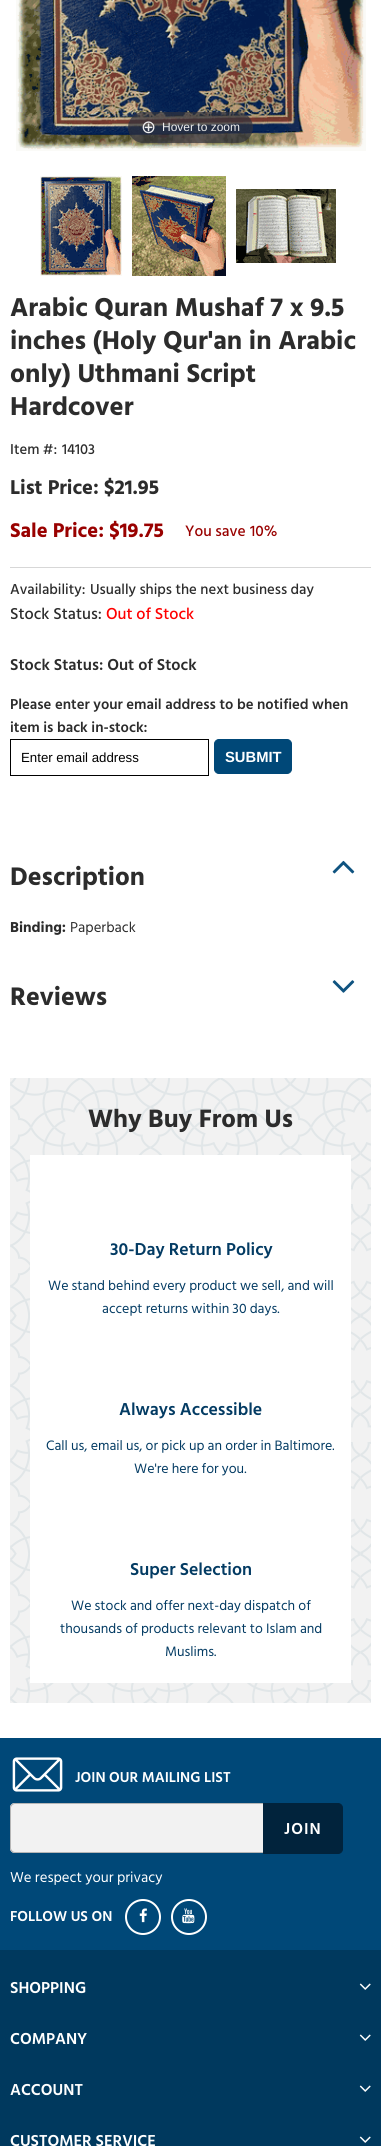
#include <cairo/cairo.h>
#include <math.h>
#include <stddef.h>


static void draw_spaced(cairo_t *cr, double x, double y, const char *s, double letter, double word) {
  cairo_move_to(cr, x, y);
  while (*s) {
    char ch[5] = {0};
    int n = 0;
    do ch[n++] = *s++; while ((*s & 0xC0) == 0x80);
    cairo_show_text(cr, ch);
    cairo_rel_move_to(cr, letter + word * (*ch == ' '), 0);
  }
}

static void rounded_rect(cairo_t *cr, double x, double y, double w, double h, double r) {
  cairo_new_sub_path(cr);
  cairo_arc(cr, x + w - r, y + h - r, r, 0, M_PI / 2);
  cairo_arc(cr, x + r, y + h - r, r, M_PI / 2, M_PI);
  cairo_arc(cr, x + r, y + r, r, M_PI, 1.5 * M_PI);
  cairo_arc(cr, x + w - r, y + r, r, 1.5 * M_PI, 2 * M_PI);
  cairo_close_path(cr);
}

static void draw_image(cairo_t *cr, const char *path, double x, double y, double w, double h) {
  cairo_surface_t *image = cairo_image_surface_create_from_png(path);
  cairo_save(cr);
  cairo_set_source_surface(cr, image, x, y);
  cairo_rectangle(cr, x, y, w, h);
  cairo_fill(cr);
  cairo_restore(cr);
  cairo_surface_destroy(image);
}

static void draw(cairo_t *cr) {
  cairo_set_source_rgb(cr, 0, 57 / 255.0, 94 / 255.0);
  cairo_paint(cr);
  cairo_set_source_rgb(cr, 1, 1, 1);
  cairo_rectangle(cr, 0, 0, 381, 1738);
  cairo_fill(cr);
  draw_image(cr, "images/1.png", 16, 0, 350, 151);
  cairo_set_source_rgba(cr, 49 / 255.0, 51 / 255.0, 61 / 255.0, 0.7);
  rounded_rect(cr, 128, 112, 125, 31, 15.5);
  cairo_fill(cr);
  draw_image(cr, "images/2.png", 40, 176, 82, 100);
  draw_image(cr, "images/3.png", 132, 176, 94, 100);
  draw_image(cr, "images/4.png", 236, 189, 100, 74);
  cairo_set_source_rgb(cr, 215 / 255.0, 215 / 255.0, 215 / 255.0);
  cairo_rectangle(cr, 10, 567, 361, 1);
  cairo_fill(cr);
  cairo_rectangle(cr, 10.5, 739.5, 198, 36);
  cairo_set_source_rgb(cr, 0, 0, 0);
  cairo_set_line_width(cr, 1);
  cairo_stroke(cr);
  cairo_set_source_rgb(cr, 0, 72 / 255.0, 120 / 255.0);
  rounded_rect(cr, 214.5, 739.5, 77, 34, 4.5);
  cairo_fill_preserve(cr);
  cairo_stroke(cr);
  draw_image(cr, "images/5.png", 332, 860, 23, 14);
  draw_image(cr, "images/6.png", 332, 980, 23, 13);
  draw_image(cr, "images/7.png", 10, 1078, 361, 625);
  cairo_set_source_rgb(cr, 1, 1, 1);
  cairo_rectangle(cr, 30, 1155, 321, 528);
  cairo_fill(cr);
  cairo_set_source_rgb(cr, 0, 72 / 255.0, 120 / 255.0);
  cairo_rectangle(cr, 0, 1738, 381, 212);
  cairo_fill(cr);
  draw_image(cr, "images/8.png", 12, 1757, 51, 35);
  cairo_set_source_rgb(cr, 242 / 255.0, 242 / 255.0, 242 / 255.0);
  cairo_new_path(cr);
  cairo_move_to(cr, 15, 1803);
  cairo_line_to(cr, 263, 1803);
  cairo_line_to(cr, 263, 1853);
  cairo_line_to(cr, 15, 1853);
  cairo_curve_to(cr, 12, 1853, 10, 1851, 10, 1848);
  cairo_line_to(cr, 10, 1808);
  cairo_curve_to(cr, 10, 1805, 12, 1803, 15, 1803);
  cairo_close_path(cr);
  cairo_fill(cr);
  cairo_set_source_rgb(cr, 182 / 255.0, 182 / 255.0, 182 / 255.0);
  cairo_set_fill_rule(cr, CAIRO_FILL_RULE_EVEN_ODD);
  cairo_new_path(cr);
  cairo_move_to(cr, 15, 1803);
  cairo_line_to(cr, 263, 1803);
  cairo_line_to(cr, 263, 1853);
  cairo_line_to(cr, 15, 1853);
  cairo_curve_to(cr, 12, 1853, 10, 1851, 10, 1848);
  cairo_line_to(cr, 10, 1808);
  cairo_curve_to(cr, 10, 1805, 12, 1803, 15, 1803);
  cairo_close_path(cr);
  cairo_move_to(cr, 15, 1804);
  cairo_line_to(cr, 263, 1804);
  cairo_line_to(cr, 263, 1852);
  cairo_line_to(cr, 15, 1852);
  cairo_curve_to(cr, 13, 1852, 11, 1850, 11, 1848);
  cairo_line_to(cr, 11, 1808);
  cairo_curve_to(cr, 11, 1806, 13, 1804, 15, 1804);
  cairo_close_path(cr);
  cairo_fill(cr);
  cairo_set_source_rgb(cr, 1 / 255.0, 35 / 255.0, 60 / 255.0);
  cairo_new_path(cr);
  cairo_move_to(cr, 263.5, 1803.5);
  cairo_line_to(cr, 338, 1803.5);
  cairo_curve_to(cr, 340.5, 1803.5, 342.5, 1805.5, 342.5, 1808);
  cairo_line_to(cr, 342.5, 1849);
  cairo_curve_to(cr, 342.5, 1851.5, 340.5, 1853.5, 338, 1853.5);
  cairo_line_to(cr, 263.5, 1853.5);
  cairo_close_path(cr);
  cairo_fill_preserve(cr);
  cairo_stroke(cr);
  cairo_arc(cr, 143, 1917, 17, 0, 2 * M_PI);
  cairo_set_source_rgb(cr, 1, 1, 1);
  cairo_set_line_width(cr, 2);
  cairo_stroke(cr);
  draw_image(cr, "images/9.png", 139, 1908, 8, 15);
  cairo_arc(cr, 189, 1917, 17, 0, 2 * M_PI);
  cairo_stroke(cr);
  draw_image(cr, "images/10.png", 182, 1908, 13, 16);
  draw_image(cr, "images/11.png", 359, 1983, 12, 7);
  draw_image(cr, "images/11.png", 359, 2034, 12, 7);
  draw_image(cr, "images/11.png", 359, 2085, 12, 7);
  draw_image(cr, "images/11.png", 359, 2136, 12, 7);
  cairo_select_font_face(cr, "DejaVu Sans", CAIRO_FONT_SLANT_NORMAL, CAIRO_FONT_WEIGHT_NORMAL);
  cairo_set_font_size(cr, 18);
  cairo_set_source_rgb(cr, 238 / 255.0, 238 / 255.0, 238 / 255.0);
  cairo_move_to(cr, 141, 133);
  cairo_show_text(cr, "⊕");
  cairo_select_font_face(cr, "Liberation Sans", CAIRO_FONT_SLANT_NORMAL, CAIRO_FONT_WEIGHT_NORMAL);
  cairo_set_font_size(cr, 12);
  cairo_move_to(cr, 162, 131);
  cairo_show_text(cr, "Hover to zoom");
  cairo_select_font_face(cr, "Hind Siliguri", CAIRO_FONT_SLANT_NORMAL, CAIRO_FONT_WEIGHT_BOLD);
  cairo_set_font_size(cr, 26.5);
  cairo_set_source_rgb(cr, 44 / 255.0, 44 / 255.0, 44 / 255.0);
  cairo_move_to(cr, 10, 316);
  cairo_show_text(cr, "Arabic Quran Mushaf 7 x 9.5");
  cairo_move_to(cr, 10, 349);
  cairo_show_text(cr, "inches (Holy Qur'an in Arabic");
  cairo_move_to(cr, 10, 382);
  cairo_show_text(cr, "only) Uthmani Script");
  cairo_move_to(cr, 10, 415);
  cairo_show_text(cr, "Hardcover");
  cairo_select_font_face(cr, "Hind Siliguri Medium", CAIRO_FONT_SLANT_NORMAL, CAIRO_FONT_WEIGHT_NORMAL);
  cairo_set_font_size(cr, 14.75);
  cairo_move_to(cr, 10, 454);
  cairo_show_text(cr, "Item #:");
  cairo_move_to(cr, 62, 454);
  cairo_show_text(cr, "14103");
  cairo_select_font_face(cr, "Hind Siliguri", CAIRO_FONT_SLANT_NORMAL, CAIRO_FONT_WEIGHT_BOLD);
  cairo_set_font_size(cr, 20.5);
  cairo_move_to(cr, 10, 494);
  cairo_show_text(cr, "List Price: $21.95");
  cairo_set_source_rgb(cr, 153 / 255.0, 1 / 255.0, 0);
  cairo_move_to(cr, 10, 537);
  cairo_show_text(cr, "Sale Price: $19.75");
  cairo_select_font_face(cr, "Hind Siliguri Medium", CAIRO_FONT_SLANT_NORMAL, CAIRO_FONT_WEIGHT_NORMAL);
  cairo_set_font_size(cr, 15.5);
  cairo_move_to(cr, 185, 536);
  cairo_show_text(cr, "You save");
  cairo_move_to(cr, 250, 536);
  cairo_show_text(cr, "10%");
  cairo_set_font_size(cr, 14.75);
  cairo_set_source_rgb(cr, 44 / 255.0, 44 / 255.0, 44 / 255.0);
  cairo_move_to(cr, 10, 594);
  cairo_show_text(cr, "Availability:");
  cairo_move_to(cr, 90, 594);
  cairo_show_text(cr, "Usually ships the next business day");
  cairo_set_font_size(cr, 16.25);
  cairo_move_to(cr, 10, 619);
  cairo_show_text(cr, "Stock Status:");
  cairo_set_source_rgb(cr, 1, 0, 0);
  cairo_move_to(cr, 106, 619);
  cairo_show_text(cr, "Out of Stock");
  cairo_select_font_face(cr, "Hind Siliguri SemiBold", CAIRO_FONT_SLANT_NORMAL, CAIRO_FONT_WEIGHT_NORMAL);
  cairo_set_source_rgb(cr, 44 / 255.0, 44 / 255.0, 44 / 255.0);
  cairo_move_to(cr, 10, 670);
  cairo_show_text(cr, "Stock Status: Out of Stock");
  cairo_set_font_size(cr, 14.75);
  cairo_move_to(cr, 10, 709);
  cairo_show_text(cr, "Please enter your email address to be notified when");
  cairo_move_to(cr, 10, 732);
  cairo_show_text(cr, "item is back in-stock:");
  cairo_select_font_face(cr, "Liberation Sans", CAIRO_FONT_SLANT_NORMAL, CAIRO_FONT_WEIGHT_NORMAL);
  cairo_set_font_size(cr, 13.25);
  cairo_set_source_rgb(cr, 0, 0, 0);
  cairo_move_to(cr, 21, 762);
  cairo_show_text(cr, "Enter email address");
  cairo_select_font_face(cr, "Liberation Sans", CAIRO_FONT_SLANT_NORMAL, CAIRO_FONT_WEIGHT_BOLD);
  cairo_set_font_size(cr, 14.75);
  cairo_set_source_rgb(cr, 1, 1, 1);
  cairo_move_to(cr, 225, 762);
  cairo_show_text(cr, "SUBMIT");
  cairo_select_font_face(cr, "Hind Siliguri", CAIRO_FONT_SLANT_NORMAL, CAIRO_FONT_WEIGHT_BOLD);
  cairo_set_font_size(cr, 26);
  cairo_set_source_rgb(cr, 44 / 255.0, 44 / 255.0, 44 / 255.0);
  cairo_move_to(cr, 10, 885);
  cairo_show_text(cr, "Description");
  cairo_set_font_size(cr, 14.75);
  cairo_move_to(cr, 10, 932);
  cairo_show_text(cr, "Binding:");
  cairo_select_font_face(cr, "Hind Siliguri", CAIRO_FONT_SLANT_NORMAL, CAIRO_FONT_WEIGHT_NORMAL);
  cairo_move_to(cr, 70, 932);
  cairo_show_text(cr, "Paperback");
  cairo_select_font_face(cr, "Hind Siliguri", CAIRO_FONT_SLANT_NORMAL, CAIRO_FONT_WEIGHT_BOLD);
  cairo_set_font_size(cr, 26);
  cairo_move_to(cr, 10, 1005);
  cairo_show_text(cr, "Reviews");
  cairo_set_font_size(cr, 25.75);
  cairo_move_to(cr, 88, 1127);
  cairo_show_text(cr, "Why Buy From Us");
  cairo_select_font_face(cr, "Hind Siliguri SemiBold", CAIRO_FONT_SLANT_NORMAL, CAIRO_FONT_WEIGHT_NORMAL);
  cairo_set_font_size(cr, 17.75);
  cairo_set_source_rgb(cr, 3 / 255.0, 59 / 255.0, 99 / 255.0);
  cairo_move_to(cr, 110, 1255);
  cairo_show_text(cr, "30-Day Return Policy");
  cairo_select_font_face(cr, "Hind Siliguri", CAIRO_FONT_SLANT_NORMAL, CAIRO_FONT_WEIGHT_NORMAL);
  cairo_set_font_size(cr, 14);
  cairo_move_to(cr, 48, 1290);
  cairo_show_text(cr, "We stand behind every product we sell, and will");
  cairo_move_to(cr, 102, 1313);
  cairo_show_text(cr, "accept returns within 30 days.");
  cairo_select_font_face(cr, "Hind Siliguri SemiBold", CAIRO_FONT_SLANT_NORMAL, CAIRO_FONT_WEIGHT_NORMAL);
  cairo_set_font_size(cr, 17.75);
  cairo_move_to(cr, 119, 1415);
  cairo_show_text(cr, "Always Accessible");
  cairo_select_font_face(cr, "Hind Siliguri", CAIRO_FONT_SLANT_NORMAL, CAIRO_FONT_WEIGHT_NORMAL);
  cairo_set_font_size(cr, 14);
  cairo_move_to(cr, 46, 1450);
  cairo_show_text(cr, "Call us, email us, or pick up an order in Baltimore.");
  cairo_move_to(cr, 134, 1473);
  cairo_show_text(cr, "We're here for you.");
  cairo_select_font_face(cr, "Hind Siliguri SemiBold", CAIRO_FONT_SLANT_NORMAL, CAIRO_FONT_WEIGHT_NORMAL);
  cairo_set_font_size(cr, 17.75);
  cairo_move_to(cr, 130, 1575);
  cairo_show_text(cr, "Super Selection");
  cairo_select_font_face(cr, "Hind Siliguri", CAIRO_FONT_SLANT_NORMAL, CAIRO_FONT_WEIGHT_NORMAL);
  cairo_set_font_size(cr, 14);
  cairo_move_to(cr, 71, 1610);
  cairo_show_text(cr, "We stock and offer next-day dispatch of");
  cairo_move_to(cr, 60, 1633);
  cairo_show_text(cr, "thousands of products relevant to Islam and");
  cairo_move_to(cr, 165, 1656);
  cairo_show_text(cr, "Muslims.");
  cairo_select_font_face(cr, "Hind Siliguri SemiBold", CAIRO_FONT_SLANT_NORMAL, CAIRO_FONT_WEIGHT_NORMAL);
  cairo_set_font_size(cr, 14.75);
  cairo_set_source_rgb(cr, 1, 1, 1);
  cairo_move_to(cr, 75, 1782);
  cairo_show_text(cr, "JOIN OUR MAILING LIST");
  cairo_set_font_size(cr, 16.25);
  draw_spaced(cr, 284, 1834, "JOIN", 1, 0);
  cairo_select_font_face(cr, "Hind Siliguri", CAIRO_FONT_SLANT_NORMAL, CAIRO_FONT_WEIGHT_NORMAL);
  cairo_set_font_size(cr, 14.75);
  cairo_move_to(cr, 10, 1882);
  cairo_show_text(cr, "We respect your privacy");
  cairo_select_font_face(cr, "Hind Siliguri SemiBold", CAIRO_FONT_SLANT_NORMAL, CAIRO_FONT_WEIGHT_NORMAL);
  cairo_move_to(cr, 10, 1921);
  cairo_show_text(cr, "FOLLOW US ON");
  cairo_set_font_size(cr, 16.25);
  cairo_move_to(cr, 10, 1993);
  cairo_show_text(cr, "SHOPPING");
  cairo_move_to(cr, 10, 2044);
  cairo_show_text(cr, "COMPANY");
  cairo_move_to(cr, 10, 2095);
  cairo_show_text(cr, "ACCOUNT");
  cairo_move_to(cr, 10, 2146);
  cairo_show_text(cr, "CUSTOMER SERVICE");
}

int main(void) {
  cairo_surface_t *surface = cairo_image_surface_create(CAIRO_FORMAT_RGB24, 381, 2146);
  cairo_t *cr = cairo_create(surface);
  cairo_font_options_t *options = cairo_font_options_create();
  cairo_font_options_set_hint_metrics(options, CAIRO_HINT_METRICS_OFF);
  cairo_font_options_set_hint_style(options, CAIRO_HINT_STYLE_NONE);
  cairo_set_font_options(cr, options);
  cairo_set_miter_limit(cr, 4);
  draw(cr);
  cairo_surface_write_to_png(surface, "out.png");
  cairo_font_options_destroy(options);
  cairo_destroy(cr);
  cairo_surface_destroy(surface);
  return 0;
}
